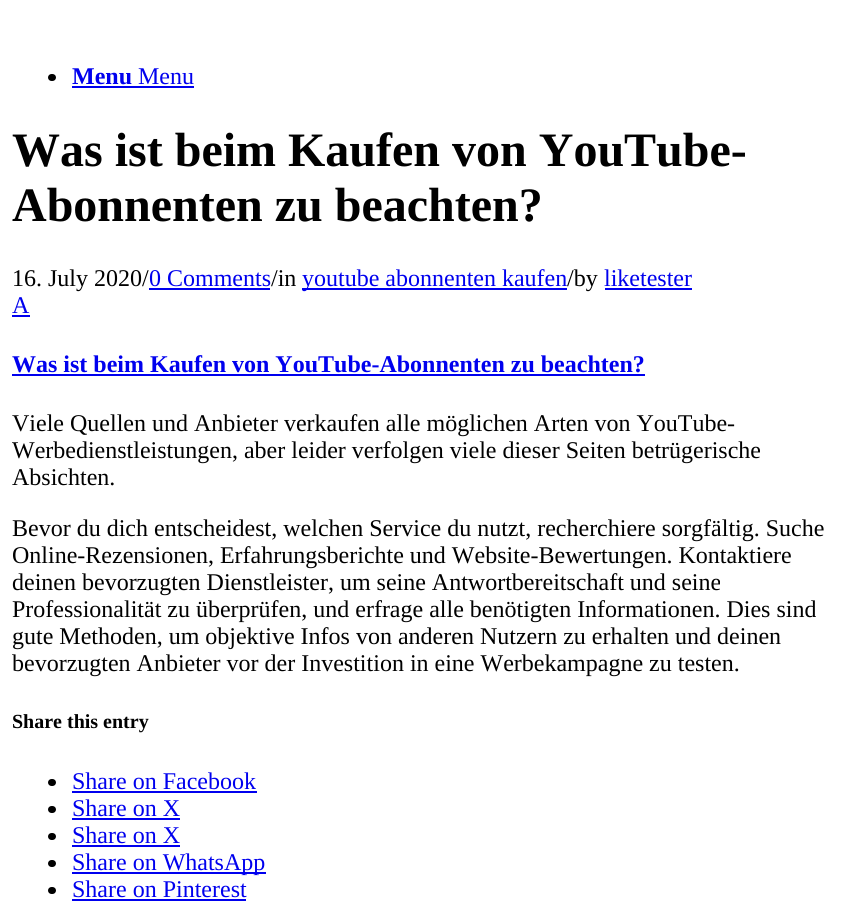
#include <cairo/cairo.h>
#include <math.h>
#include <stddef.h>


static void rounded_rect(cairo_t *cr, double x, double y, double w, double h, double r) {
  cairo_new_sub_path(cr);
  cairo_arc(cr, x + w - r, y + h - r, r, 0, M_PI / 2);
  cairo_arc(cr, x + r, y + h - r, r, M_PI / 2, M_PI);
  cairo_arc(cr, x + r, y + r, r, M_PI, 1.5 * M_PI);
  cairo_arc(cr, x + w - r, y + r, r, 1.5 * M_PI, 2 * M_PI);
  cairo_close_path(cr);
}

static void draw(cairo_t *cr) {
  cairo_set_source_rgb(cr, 1, 1, 1);
  cairo_paint(cr);
  cairo_set_source_rgb(cr, 0, 0, 0);
  rounded_rect(cr, 48, 74, 8, 7, 3.5);
  cairo_fill(cr);
  cairo_set_source_rgb(cr, 0, 0, 238 / 255.0);
  cairo_rectangle(cr, 72, 86, 122, 2);
  cairo_fill(cr);
  cairo_rectangle(cr, 149, 288, 121, 2);
  cairo_fill(cr);
  cairo_rectangle(cr, 302, 288, 265, 2);
  cairo_fill(cr);
  cairo_rectangle(cr, 605, 288, 87, 2);
  cairo_fill(cr);
  cairo_rectangle(cr, 12, 315, 18, 2);
  cairo_fill(cr);
  cairo_rectangle(cr, 12, 374, 633, 2);
  cairo_fill(cr);
  cairo_set_source_rgb(cr, 0, 0, 0);
  rounded_rect(cr, 48, 779, 8, 7, 3.5);
  cairo_fill(cr);
  cairo_set_source_rgb(cr, 0, 0, 238 / 255.0);
  cairo_rectangle(cr, 72, 791, 185, 2);
  cairo_fill(cr);
  cairo_set_source_rgb(cr, 0, 0, 0);
  rounded_rect(cr, 48, 806, 8, 7, 3.5);
  cairo_fill(cr);
  cairo_set_source_rgb(cr, 0, 0, 238 / 255.0);
  cairo_rectangle(cr, 72, 818, 108, 2);
  cairo_fill(cr);
  cairo_set_source_rgb(cr, 0, 0, 0);
  rounded_rect(cr, 48, 833, 8, 7, 3.5);
  cairo_fill(cr);
  cairo_set_source_rgb(cr, 0, 0, 238 / 255.0);
  cairo_rectangle(cr, 72, 845, 108, 2);
  cairo_fill(cr);
  cairo_set_source_rgb(cr, 0, 0, 0);
  rounded_rect(cr, 48, 860, 8, 7, 3.5);
  cairo_fill(cr);
  cairo_set_source_rgb(cr, 0, 0, 238 / 255.0);
  cairo_rectangle(cr, 72, 872, 194, 2);
  cairo_fill(cr);
  cairo_set_source_rgb(cr, 0, 0, 0);
  rounded_rect(cr, 48, 887, 8, 7, 3.5);
  cairo_fill(cr);
  cairo_set_source_rgb(cr, 0, 0, 238 / 255.0);
  cairo_rectangle(cr, 72, 899, 174, 2);
  cairo_fill(cr);
  cairo_select_font_face(cr, "Liberation Serif", CAIRO_FONT_SLANT_NORMAL, CAIRO_FONT_WEIGHT_BOLD);
  cairo_set_font_size(cr, 24);
  cairo_move_to(cr, 72, 84);
  cairo_show_text(cr, "Menu");
  cairo_select_font_face(cr, "Liberation Serif", CAIRO_FONT_SLANT_NORMAL, CAIRO_FONT_WEIGHT_NORMAL);
  cairo_move_to(cr, 138, 84);
  cairo_show_text(cr, "Menu");
  cairo_select_font_face(cr, "Liberation Serif", CAIRO_FONT_SLANT_NORMAL, CAIRO_FONT_WEIGHT_BOLD);
  cairo_set_font_size(cr, 48);
  cairo_set_source_rgb(cr, 0, 0, 0);
  cairo_move_to(cr, 12, 166);
  cairo_show_text(cr, "Was ist beim Kaufen von YouTube-");
  cairo_move_to(cr, 12, 221);
  cairo_show_text(cr, "Abonnenten zu beachten?");
  cairo_select_font_face(cr, "Liberation Serif", CAIRO_FONT_SLANT_NORMAL, CAIRO_FONT_WEIGHT_NORMAL);
  cairo_set_font_size(cr, 24);
  cairo_move_to(cr, 12, 286);
  cairo_show_text(cr, "16. July 2020/");
  cairo_set_source_rgb(cr, 0, 0, 238 / 255.0);
  cairo_move_to(cr, 149, 286);
  cairo_show_text(cr, "0 Comments");
  cairo_set_source_rgb(cr, 0, 0, 0);
  cairo_move_to(cr, 271, 286);
  cairo_show_text(cr, "/in");
  cairo_set_source_rgb(cr, 0, 0, 238 / 255.0);
  cairo_move_to(cr, 302, 286);
  cairo_show_text(cr, "youtube abonnenten kaufen");
  cairo_set_source_rgb(cr, 0, 0, 0);
  cairo_move_to(cr, 567, 286);
  cairo_show_text(cr, "/by");
  cairo_set_source_rgb(cr, 0, 0, 238 / 255.0);
  cairo_move_to(cr, 604, 286);
  cairo_show_text(cr, "liketester");
  cairo_move_to(cr, 12, 313);
  cairo_show_text(cr, "A");
  cairo_select_font_face(cr, "Liberation Serif", CAIRO_FONT_SLANT_NORMAL, CAIRO_FONT_WEIGHT_BOLD);
  cairo_move_to(cr, 12, 372);
  cairo_show_text(cr, "Was ist beim Kaufen von YouTube-Abonnenten zu beachten?");
  cairo_select_font_face(cr, "Liberation Serif", CAIRO_FONT_SLANT_NORMAL, CAIRO_FONT_WEIGHT_NORMAL);
  cairo_set_source_rgb(cr, 0, 0, 0);
  cairo_move_to(cr, 12, 431);
  cairo_show_text(cr, "Viele Quellen und Anbieter verkaufen alle möglichen Arten von YouTube-");
  cairo_move_to(cr, 12, 458);
  cairo_show_text(cr, "Werbedienstleistungen, aber leider verfolgen viele dieser Seiten betrügerische");
  cairo_move_to(cr, 12, 485);
  cairo_show_text(cr, "Absichten.");
  cairo_move_to(cr, 12, 536);
  cairo_show_text(cr, "Bevor du dich entscheidest, welchen Service du nutzt, recherchiere sorgfältig. Suche");
  cairo_move_to(cr, 12, 563);
  cairo_show_text(cr, "Online-Rezensionen, Erfahrungsberichte und Website-Bewertungen. Kontaktiere");
  cairo_move_to(cr, 12, 590);
  cairo_show_text(cr, "deinen bevorzugten Dienstleister, um seine Antwortbereitschaft und seine");
  cairo_move_to(cr, 12, 617);
  cairo_show_text(cr, "Professionalität zu überprüfen, und erfrage alle benötigten Informationen. Dies sind");
  cairo_move_to(cr, 12, 644);
  cairo_show_text(cr, "gute Methoden, um objektive Infos von anderen Nutzern zu erhalten und deinen");
  cairo_move_to(cr, 12, 671);
  cairo_show_text(cr, "bevorzugten Anbieter vor der Investition in eine Werbekampagne zu testen.");
  cairo_select_font_face(cr, "Liberation Serif", CAIRO_FONT_SLANT_NORMAL, CAIRO_FONT_WEIGHT_BOLD);
  cairo_set_font_size(cr, 20);
  cairo_move_to(cr, 12, 728);
  cairo_show_text(cr, "Share this entry");
  cairo_select_font_face(cr, "Liberation Serif", CAIRO_FONT_SLANT_NORMAL, CAIRO_FONT_WEIGHT_NORMAL);
  cairo_set_font_size(cr, 24);
  cairo_set_source_rgb(cr, 0, 0, 238 / 255.0);
  cairo_move_to(cr, 72, 789);
  cairo_show_text(cr, "Share on Facebook");
  cairo_move_to(cr, 72, 816);
  cairo_show_text(cr, "Share on X");
  cairo_move_to(cr, 72, 843);
  cairo_show_text(cr, "Share on X");
  cairo_move_to(cr, 72, 870);
  cairo_show_text(cr, "Share on WhatsApp");
  cairo_move_to(cr, 72, 897);
  cairo_show_text(cr, "Share on Pinterest");
}

int main(void) {
  cairo_surface_t *surface = cairo_image_surface_create(CAIRO_FORMAT_RGB24, 844, 912);
  cairo_t *cr = cairo_create(surface);
  cairo_font_options_t *options = cairo_font_options_create();
  cairo_font_options_set_hint_metrics(options, CAIRO_HINT_METRICS_OFF);
  cairo_font_options_set_hint_style(options, CAIRO_HINT_STYLE_NONE);
  cairo_set_font_options(cr, options);
  cairo_set_miter_limit(cr, 4);
  draw(cr);
  cairo_surface_write_to_png(surface, "out.png");
  cairo_font_options_destroy(options);
  cairo_destroy(cr);
  cairo_surface_destroy(surface);
  return 0;
}
